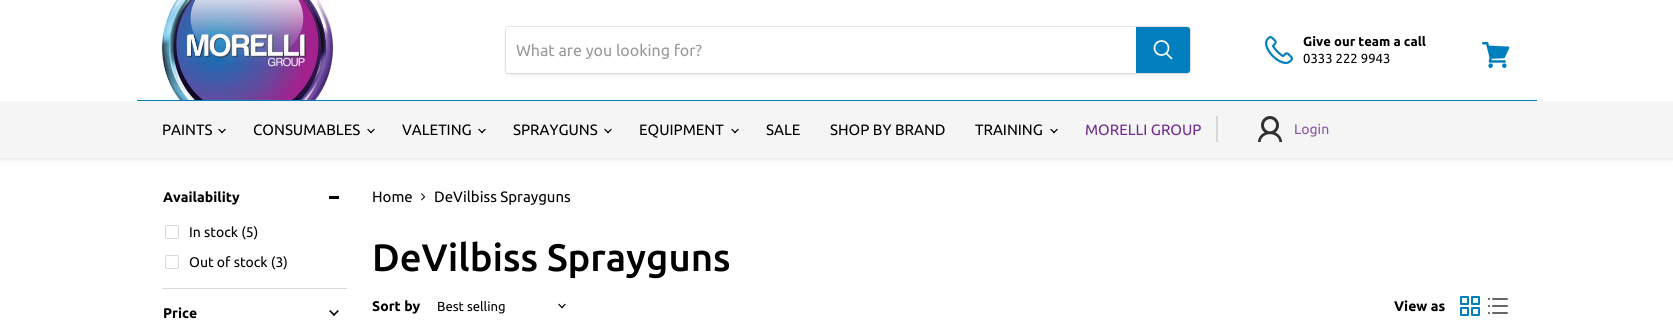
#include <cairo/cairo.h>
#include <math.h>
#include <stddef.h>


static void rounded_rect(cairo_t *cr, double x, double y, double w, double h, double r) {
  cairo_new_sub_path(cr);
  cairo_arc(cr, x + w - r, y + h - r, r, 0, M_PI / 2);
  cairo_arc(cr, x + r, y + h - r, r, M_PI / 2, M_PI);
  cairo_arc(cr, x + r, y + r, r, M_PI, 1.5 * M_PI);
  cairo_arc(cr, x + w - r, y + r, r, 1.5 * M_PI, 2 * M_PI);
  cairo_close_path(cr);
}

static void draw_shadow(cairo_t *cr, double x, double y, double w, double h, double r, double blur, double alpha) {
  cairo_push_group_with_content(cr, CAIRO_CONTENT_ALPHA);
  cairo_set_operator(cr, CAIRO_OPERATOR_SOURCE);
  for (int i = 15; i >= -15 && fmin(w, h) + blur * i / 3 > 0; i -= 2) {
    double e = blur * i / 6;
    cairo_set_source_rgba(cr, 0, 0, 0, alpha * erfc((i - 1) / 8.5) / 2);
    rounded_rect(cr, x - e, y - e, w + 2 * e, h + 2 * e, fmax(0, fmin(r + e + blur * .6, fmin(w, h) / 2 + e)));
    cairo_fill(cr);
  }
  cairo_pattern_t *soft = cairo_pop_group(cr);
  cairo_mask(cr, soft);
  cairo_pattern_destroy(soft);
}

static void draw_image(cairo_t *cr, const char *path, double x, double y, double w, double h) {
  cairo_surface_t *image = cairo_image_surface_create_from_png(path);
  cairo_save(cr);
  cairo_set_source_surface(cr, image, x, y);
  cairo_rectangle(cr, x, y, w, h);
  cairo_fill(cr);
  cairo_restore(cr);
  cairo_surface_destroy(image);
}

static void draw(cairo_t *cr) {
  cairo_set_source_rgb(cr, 1, 1, 1);
  cairo_paint(cr);
  cairo_save(cr);
  cairo_rectangle(cr, 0, 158, 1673, 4);
  cairo_clip(cr);
  cairo_set_source_rgb(cr, 128 / 255.0, 128 / 255.0, 128 / 255.0);
  draw_shadow(cr, 0, 1, 1673, 158, 0, 2, 0.25);
  cairo_restore(cr);
  cairo_set_source_rgb(cr, 0, 126 / 255.0, 190 / 255.0);
  cairo_rectangle(cr, 137, 100, 1400, 1);
  cairo_fill(cr);
  draw_image(cr, "images/1.png", 161, 0, 172, 100);
  cairo_set_source_rgb(cr, 128 / 255.0, 128 / 255.0, 128 / 255.0);
  draw_shadow(cr, 505, 28, 686, 48, 4, 1.5, 0.11);
  rounded_rect(cr, 505.5, 26.5, 685, 47, 3.5);
  cairo_set_source_rgba(cr, 128 / 255.0, 128 / 255.0, 128 / 255.0, 0.2);
  cairo_set_line_width(cr, 1);
  cairo_stroke(cr);
  cairo_set_source_rgb(cr, 1, 1, 1);
  cairo_new_path(cr);
  cairo_move_to(cr, 509, 27);
  cairo_line_to(cr, 1136, 27);
  cairo_line_to(cr, 1136, 73);
  cairo_line_to(cr, 509, 73);
  cairo_curve_to(cr, 507.5, 73, 506, 71.5, 506, 70);
  cairo_line_to(cr, 506, 30);
  cairo_curve_to(cr, 506, 28.5, 507.5, 27, 509, 27);
  cairo_close_path(cr);
  cairo_fill(cr);
  cairo_set_source_rgb(cr, 0, 126 / 255.0, 190 / 255.0);
  cairo_new_path(cr);
  cairo_move_to(cr, 1136.5, 27.5);
  cairo_line_to(cr, 1187, 27.5);
  cairo_curve_to(cr, 1188.5, 27.5, 1189.5, 28.5, 1189.5, 30);
  cairo_line_to(cr, 1189.5, 70);
  cairo_curve_to(cr, 1189.5, 71.5, 1188.5, 72.5, 1187, 72.5);
  cairo_line_to(cr, 1136.5, 72.5);
  cairo_close_path(cr);
  cairo_fill_preserve(cr);
  cairo_stroke(cr);
  cairo_new_path(cr);
  cairo_move_to(cr, 1171.5, 58.5);
  cairo_line_to(cr, 1166.5, 53.5);
  cairo_set_source_rgb(cr, 1, 1, 1);
  cairo_set_line_width(cr, 1.7);
  cairo_set_line_cap(cr, CAIRO_LINE_CAP_ROUND);
  cairo_stroke(cr);
  cairo_arc(cr, 1161.5, 48, 7, 0, 2 * M_PI);
  cairo_set_line_cap(cr, CAIRO_LINE_CAP_BUTT);
  cairo_stroke(cr);
  draw_image(cr, "images/2.png", 1265, 36, 28, 28);
  draw_image(cr, "images/3.png", 1482, 42, 28, 26);
  cairo_set_source_rgb(cr, 245 / 255.0, 245 / 255.0, 245 / 255.0);
  cairo_rectangle(cr, 0, 101, 1673, 57);
  cairo_fill(cr);
  draw_image(cr, "images/4.png", 218, 128, 8, 6);
  draw_image(cr, "images/4.png", 367, 128, 8, 6);
  draw_image(cr, "images/4.png", 478, 128, 8, 6);
  draw_image(cr, "images/4.png", 604, 128, 8, 6);
  draw_image(cr, "images/4.png", 731, 128, 8, 6);
  draw_image(cr, "images/4.png", 1050, 128, 8, 6);
  cairo_set_source_rgb(cr, 216 / 255.0, 216 / 255.0, 216 / 255.0);
  cairo_rectangle(cr, 1216, 116, 2, 26);
  cairo_fill(cr);
  draw_image(cr, "images/5.png", 1258, 116, 24, 26);
  cairo_set_source_rgb(cr, 0, 0, 0);
  cairo_rectangle(cr, 329, 196, 10, 3);
  cairo_fill(cr);
  rounded_rect(cr, 165.5, 225.5, 13, 13, 1.5);
  cairo_set_source_rgb(cr, 216 / 255.0, 216 / 255.0, 216 / 255.0);
  cairo_set_line_width(cr, 1);
  cairo_stroke(cr);
  rounded_rect(cr, 165.5, 255.5, 13, 13, 1.5);
  cairo_stroke(cr);
  cairo_set_source_rgb(cr, 217 / 255.0, 217 / 255.0, 217 / 255.0);
  cairo_rectangle(cr, 162, 288, 185, 1);
  cairo_fill(cr);
  draw_image(cr, "images/6.png", 329, 310, 10, 6);
  draw_image(cr, "images/7.png", 421, 193, 5, 8);
  draw_image(cr, "images/8.png", 558, 303, 8, 6);
  draw_image(cr, "images/9.png", 1460, 296, 20, 20);
  draw_image(cr, "images/10.png", 1488, 298, 20, 16);
  cairo_select_font_face(cr, "Ubuntu", CAIRO_FONT_SLANT_NORMAL, CAIRO_FONT_WEIGHT_NORMAL);
  cairo_set_font_size(cr, 16);
  cairo_set_source_rgb(cr, 153 / 255.0, 153 / 255.0, 153 / 255.0);
  cairo_move_to(cr, 516, 56);
  cairo_show_text(cr, "What are you looking for?");
  cairo_select_font_face(cr, "Ubuntu", CAIRO_FONT_SLANT_NORMAL, CAIRO_FONT_WEIGHT_BOLD);
  cairo_set_font_size(cr, 13.1);
  cairo_set_source_rgb(cr, 0, 0, 0);
  cairo_move_to(cr, 1303, 46);
  cairo_show_text(cr, "Give our team a call");
  cairo_select_font_face(cr, "Ubuntu", CAIRO_FONT_SLANT_NORMAL, CAIRO_FONT_WEIGHT_NORMAL);
  cairo_move_to(cr, 1303, 63);
  cairo_show_text(cr, "0333 222 9943");
  cairo_set_font_size(cr, 15);
  cairo_move_to(cr, 162, 135);
  cairo_show_text(cr, "PAINTS");
  cairo_move_to(cr, 253, 135);
  cairo_show_text(cr, "CONSUMABLES");
  cairo_move_to(cr, 402, 135);
  cairo_show_text(cr, "VALETING");
  cairo_move_to(cr, 513, 135);
  cairo_show_text(cr, "SPRAYGUNS");
  cairo_move_to(cr, 639, 135);
  cairo_show_text(cr, "EQUIPMENT");
  cairo_move_to(cr, 766, 135);
  cairo_show_text(cr, "SALE");
  cairo_move_to(cr, 830, 135);
  cairo_show_text(cr, "SHOP BY BRAND");
  cairo_move_to(cr, 975, 135);
  cairo_show_text(cr, "TRAINING");
  cairo_set_source_rgb(cr, 115 / 255.0, 43 / 255.0, 144 / 255.0);
  cairo_move_to(cr, 1085, 135);
  cairo_show_text(cr, "MORELLI GROUP");
  cairo_set_font_size(cr, 14);
  cairo_set_source_rgb(cr, 141 / 255.0, 83 / 255.0, 164 / 255.0);
  cairo_move_to(cr, 1294, 134);
  cairo_show_text(cr, "Login");
  cairo_select_font_face(cr, "Ubuntu", CAIRO_FONT_SLANT_NORMAL, CAIRO_FONT_WEIGHT_BOLD);
  cairo_set_source_rgb(cr, 0, 0, 0);
  cairo_move_to(cr, 163, 202);
  cairo_show_text(cr, "Availability");
  cairo_select_font_face(cr, "Ubuntu", CAIRO_FONT_SLANT_NORMAL, CAIRO_FONT_WEIGHT_NORMAL);
  cairo_move_to(cr, 189, 237);
  cairo_show_text(cr, "In stock (5)");
  cairo_move_to(cr, 189, 267);
  cairo_show_text(cr, "Out of stock (3)");
  cairo_select_font_face(cr, "Ubuntu", CAIRO_FONT_SLANT_NORMAL, CAIRO_FONT_WEIGHT_BOLD);
  cairo_move_to(cr, 163, 318);
  cairo_show_text(cr, "Price");
  cairo_select_font_face(cr, "Ubuntu", CAIRO_FONT_SLANT_NORMAL, CAIRO_FONT_WEIGHT_NORMAL);
  cairo_set_font_size(cr, 15);
  cairo_move_to(cr, 372, 202);
  cairo_show_text(cr, "Home");
  cairo_move_to(cr, 434, 202);
  cairo_show_text(cr, "DeVilbiss Sprayguns");
  cairo_select_font_face(cr, "Ubuntu Medium", CAIRO_FONT_SLANT_NORMAL, CAIRO_FONT_WEIGHT_NORMAL);
  cairo_set_font_size(cr, 38.25);
  cairo_move_to(cr, 372, 271);
  cairo_show_text(cr, "DeVilbiss Sprayguns");
  cairo_select_font_face(cr, "Ubuntu", CAIRO_FONT_SLANT_NORMAL, CAIRO_FONT_WEIGHT_BOLD);
  cairo_set_font_size(cr, 14);
  cairo_move_to(cr, 372, 311);
  cairo_show_text(cr, "Sort by");
  cairo_select_font_face(cr, "Ubuntu", CAIRO_FONT_SLANT_NORMAL, CAIRO_FONT_WEIGHT_NORMAL);
  cairo_set_font_size(cr, 13.1);
  cairo_move_to(cr, 437, 311);
  cairo_show_text(cr, "Best selling");
  cairo_select_font_face(cr, "Ubuntu", CAIRO_FONT_SLANT_NORMAL, CAIRO_FONT_WEIGHT_BOLD);
  cairo_set_font_size(cr, 14);
  cairo_move_to(cr, 1394, 311);
  cairo_show_text(cr, "View as");
}

int main(void) {
  cairo_surface_t *surface = cairo_image_surface_create(CAIRO_FORMAT_RGB24, 1673, 326);
  cairo_t *cr = cairo_create(surface);
  cairo_font_options_t *options = cairo_font_options_create();
  cairo_font_options_set_hint_metrics(options, CAIRO_HINT_METRICS_OFF);
  cairo_font_options_set_hint_style(options, CAIRO_HINT_STYLE_NONE);
  cairo_set_font_options(cr, options);
  cairo_set_miter_limit(cr, 4);
  draw(cr);
  cairo_surface_write_to_png(surface, "out.png");
  cairo_font_options_destroy(options);
  cairo_destroy(cr);
  cairo_surface_destroy(surface);
  return 0;
}
